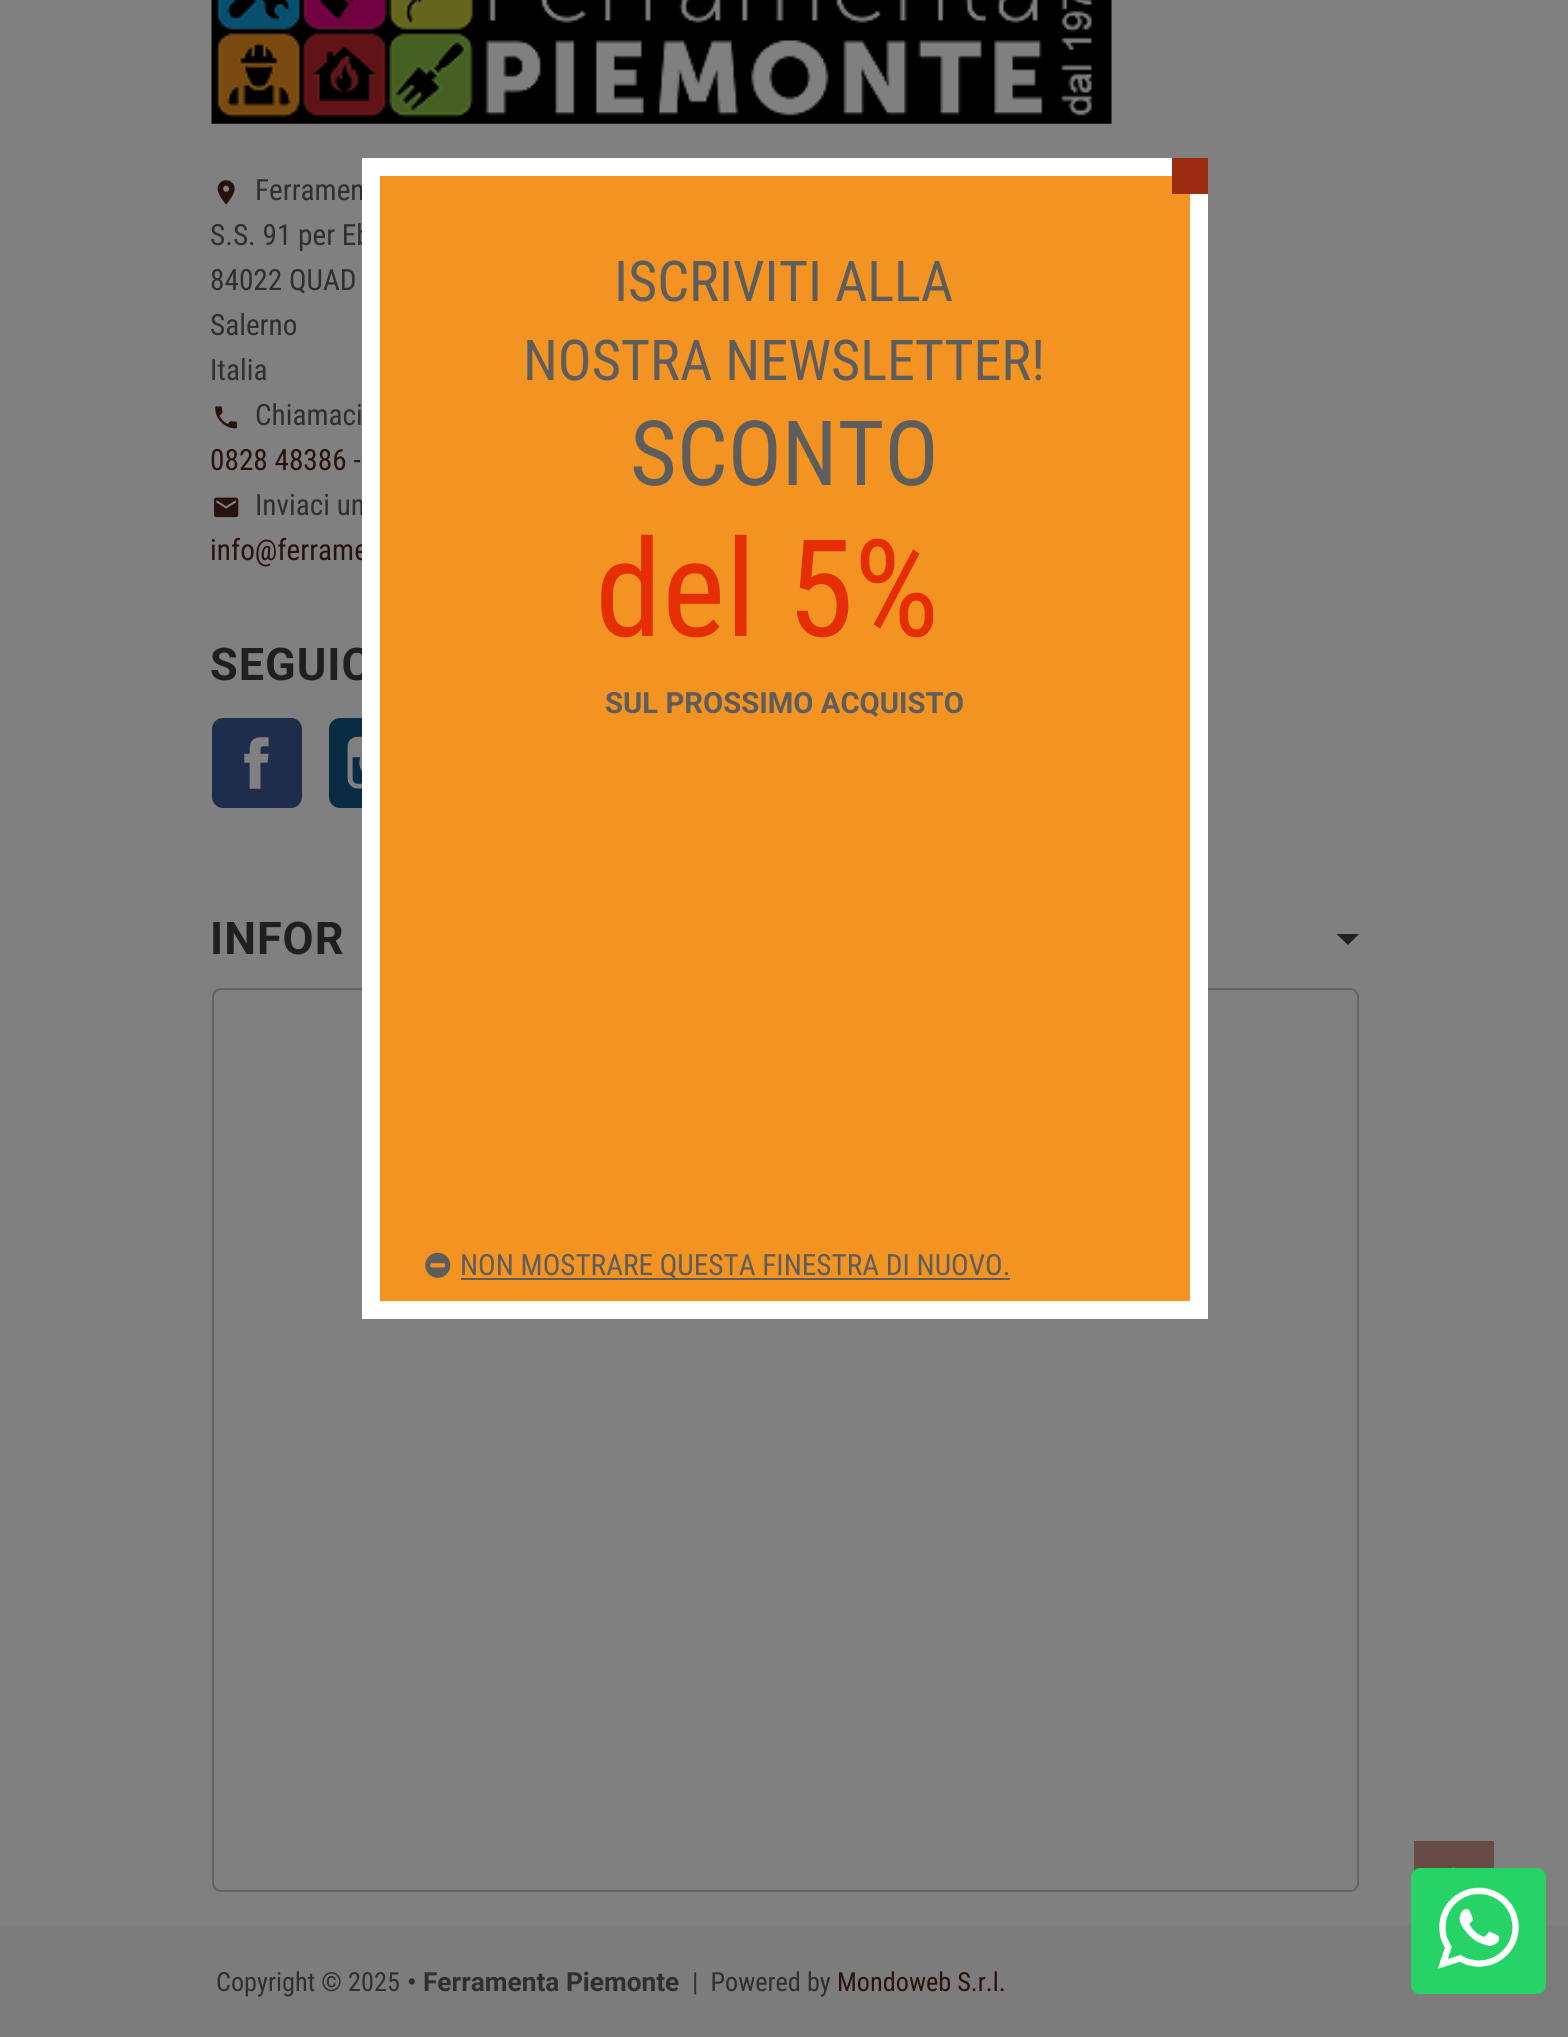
#include <cairo/cairo.h>
#include <math.h>
#include <stddef.h>


static void draw_spaced(cairo_t *cr, double x, double y, const char *s, double letter, double word) {
  cairo_move_to(cr, x, y);
  while (*s) {
    char ch[5] = {0};
    int n = 0;
    do ch[n++] = *s++; while ((*s & 0xC0) == 0x80);
    cairo_show_text(cr, ch);
    cairo_rel_move_to(cr, letter + word * (*ch == ' '), 0);
  }
}

static void rounded_rect(cairo_t *cr, double x, double y, double w, double h, double r) {
  cairo_new_sub_path(cr);
  cairo_arc(cr, x + w - r, y + h - r, r, 0, M_PI / 2);
  cairo_arc(cr, x + r, y + h - r, r, M_PI / 2, M_PI);
  cairo_arc(cr, x + r, y + r, r, M_PI, 1.5 * M_PI);
  cairo_arc(cr, x + w - r, y + r, r, 1.5 * M_PI, 2 * M_PI);
  cairo_close_path(cr);
}

static void draw_image(cairo_t *cr, const char *path, double x, double y, double w, double h) {
  cairo_surface_t *image = cairo_image_surface_create_from_png(path);
  cairo_save(cr);
  cairo_set_source_surface(cr, image, x, y);
  cairo_rectangle(cr, x, y, w, h);
  cairo_fill(cr);
  cairo_restore(cr);
  cairo_surface_destroy(image);
}

static void draw(cairo_t *cr) {
  cairo_set_source_rgb(cr, 128 / 255.0, 128 / 255.0, 128 / 255.0);
  cairo_paint(cr);
  draw_image(cr, "images/1.png", 211, 0, 901, 124);
  draw_image(cr, "images/2.png", 217, 180, 18, 25);
  draw_image(cr, "images/3.png", 215, 406, 23, 23);
  draw_image(cr, "images/4.png", 213, 497, 26, 21);
  cairo_set_source_rgb(cr, 30 / 255.0, 45 / 255.0, 76 / 255.0);
  rounded_rect(cr, 212, 718, 90, 90, 11);
  cairo_fill(cr);
  draw_image(cr, "images/5.png", 244, 737, 25, 52);
  cairo_set_source_rgb(cr, 9 / 255.0, 43 / 255.0, 68 / 255.0);
  rounded_rect(cr, 329, 718, 90, 90, 11);
  cairo_fill(cr);
  draw_image(cr, "images/6.png", 347, 736, 15, 53);
  cairo_set_source_rgb(cr, 31 / 255.0, 31 / 255.0, 31 / 255.0);
  cairo_new_path(cr);
  cairo_move_to(cr, 1336.5, 934);
  cairo_line_to(cr, 1359, 934);
  cairo_line_to(cr, 1348, 945);
  cairo_close_path(cr);
  cairo_fill(cr);
  rounded_rect(cr, 213, 989, 1145, 902, 8);
  cairo_set_source_rgb(cr, 100 / 255.0, 100 / 255.0, 100 / 255.0);
  cairo_stroke(cr);
  cairo_set_source_rgb(cr, 124 / 255.0, 124 / 255.0, 124 / 255.0);
  cairo_rectangle(cr, 0, 1926, 1568, 111);
  cairo_fill(cr);
  cairo_set_source_rgb(cr, 103 / 255.0, 75 / 255.0, 69 / 255.0);
  cairo_rectangle(cr, 1414, 1841, 80, 30);
  cairo_fill(cr);
  draw_image(cr, "images/8.png", 1451, 1866, 5, 2);
  cairo_set_source_rgb(cr, 37 / 255.0, 211 / 255.0, 102 / 255.0);
  rounded_rect(cr, 1411, 1868, 135, 126, 9);
  cairo_fill(cr);
  draw_image(cr, "images/9.png", 1437, 1887, 82, 82);
  cairo_select_font_face(cr, "Roboto Condensed", CAIRO_FONT_SLANT_NORMAL, CAIRO_FONT_WEIGHT_NORMAL);
  cairo_set_font_size(cr, 29.25);
  cairo_set_source_rgb(cr, 47 / 255.0, 47 / 255.0, 47 / 255.0);
  cairo_move_to(cr, 255, 200);
  cairo_show_text(cr, "Ferramen");
  cairo_move_to(cr, 210, 245);
  cairo_show_text(cr, "S.S. 91 per Eb");
  cairo_move_to(cr, 210, 290);
  cairo_show_text(cr, "84022 QUAD");
  cairo_move_to(cr, 210, 335);
  cairo_show_text(cr, "Salerno");
  cairo_move_to(cr, 210, 380);
  cairo_show_text(cr, "Italia");
  cairo_move_to(cr, 255, 425);
  cairo_show_text(cr, "Chiamaci");
  cairo_set_source_rgb(cr, 40 / 255.0, 18 / 255.0, 13 / 255.0);
  cairo_move_to(cr, 210, 470);
  cairo_show_text(cr, "0828 48386 -");
  cairo_set_source_rgb(cr, 47 / 255.0, 47 / 255.0, 47 / 255.0);
  cairo_move_to(cr, 255, 515);
  cairo_show_text(cr, "Inviaci un");
  cairo_set_source_rgb(cr, 40 / 255.0, 18 / 255.0, 13 / 255.0);
  cairo_move_to(cr, 210, 560);
  cairo_show_text(cr, "info@ferrame");
  cairo_select_font_face(cr, "Roboto", CAIRO_FONT_SLANT_NORMAL, CAIRO_FONT_WEIGHT_BOLD);
  cairo_set_font_size(cr, 45);
  cairo_set_source_rgb(cr, 31 / 255.0, 31 / 255.0, 31 / 255.0);
  draw_spaced(cr, 210, 680, "SEGUIC", 1, 0);
  draw_spaced(cr, 210, 954, "INFOR", 1, 0);
  cairo_select_font_face(cr, "Roboto Condensed", CAIRO_FONT_SLANT_NORMAL, CAIRO_FONT_WEIGHT_NORMAL);
  cairo_set_font_size(cr, 26.25);
  cairo_set_source_rgb(cr, 47 / 255.0, 47 / 255.0, 47 / 255.0);
  cairo_move_to(cr, 216, 1991);
  cairo_show_text(cr, "Copyright © 2025");
  cairo_select_font_face(cr, "Roboto", CAIRO_FONT_SLANT_NORMAL, CAIRO_FONT_WEIGHT_BOLD);
  cairo_move_to(cr, 407, 1991);
  cairo_show_text(cr, "• Ferramenta Piemonte");
  cairo_select_font_face(cr, "Roboto Condensed", CAIRO_FONT_SLANT_NORMAL, CAIRO_FONT_WEIGHT_NORMAL);
  cairo_move_to(cr, 692, 1991);
  cairo_show_text(cr, "|  Powered by");
  cairo_set_source_rgb(cr, 40 / 255.0, 18 / 255.0, 13 / 255.0);
  cairo_move_to(cr, 837, 1991);
  cairo_show_text(cr, "Mondoweb S.r.l.");
  cairo_set_source_rgb(cr, 1, 1, 1);
  cairo_rectangle(cr, 362, 158, 846, 1161);
  cairo_fill(cr);
  cairo_set_source_rgb(cr, 243 / 255.0, 147 / 255.0, 34 / 255.0);
  cairo_rectangle(cr, 380, 176, 810, 1125);
  cairo_fill(cr);
  cairo_set_source_rgb(cr, 155 / 255.0, 44 / 255.0, 18 / 255.0);
  cairo_rectangle(cr, 1172, 158, 36, 36);
  cairo_fill(cr);
  cairo_set_font_size(cr, 56.25);
  cairo_set_source_rgb(cr, 93 / 255.0, 93 / 255.0, 93 / 255.0);
  cairo_move_to(cr, 614, 301);
  cairo_show_text(cr, "ISCRIVITI ALLA");
  cairo_move_to(cr, 523, 380);
  cairo_show_text(cr, "NOSTRA NEWSLETTER!");
  cairo_set_font_size(cr, 90);
  cairo_move_to(cr, 630, 485);
  cairo_show_text(cr, "SCONTO");
  cairo_set_font_size(cr, 135);
  cairo_set_source_rgb(cr, 229 / 255.0, 46 / 255.0, 4 / 255.0);
  cairo_move_to(cr, 595, 636);
  cairo_show_text(cr, "del 5%");
  cairo_select_font_face(cr, "Roboto", CAIRO_FONT_SLANT_NORMAL, CAIRO_FONT_WEIGHT_BOLD);
  cairo_set_font_size(cr, 29.25);
  cairo_set_source_rgb(cr, 93 / 255.0, 93 / 255.0, 93 / 255.0);
  cairo_move_to(cr, 605, 713);
  cairo_show_text(cr, "SUL PROSSIMO ACQUISTO");
  draw_image(cr, "images/7.png", 425, 1252, 26, 26);
  cairo_rectangle(cr, 461, 1278, 549, 2);
  cairo_fill(cr);
  cairo_select_font_face(cr, "Roboto Condensed", CAIRO_FONT_SLANT_NORMAL, CAIRO_FONT_WEIGHT_NORMAL);
  cairo_move_to(cr, 460, 1275);
  cairo_show_text(cr, "NON MOSTRARE QUESTA FINESTRA DI NUOVO.");
}

int main(void) {
  cairo_surface_t *surface = cairo_image_surface_create(CAIRO_FORMAT_RGB24, 1568, 2037);
  cairo_t *cr = cairo_create(surface);
  cairo_font_options_t *options = cairo_font_options_create();
  cairo_font_options_set_hint_metrics(options, CAIRO_HINT_METRICS_OFF);
  cairo_font_options_set_hint_style(options, CAIRO_HINT_STYLE_NONE);
  cairo_set_font_options(cr, options);
  cairo_set_miter_limit(cr, 4);
  draw(cr);
  cairo_surface_write_to_png(surface, "out.png");
  cairo_font_options_destroy(options);
  cairo_destroy(cr);
  cairo_surface_destroy(surface);
  return 0;
}
